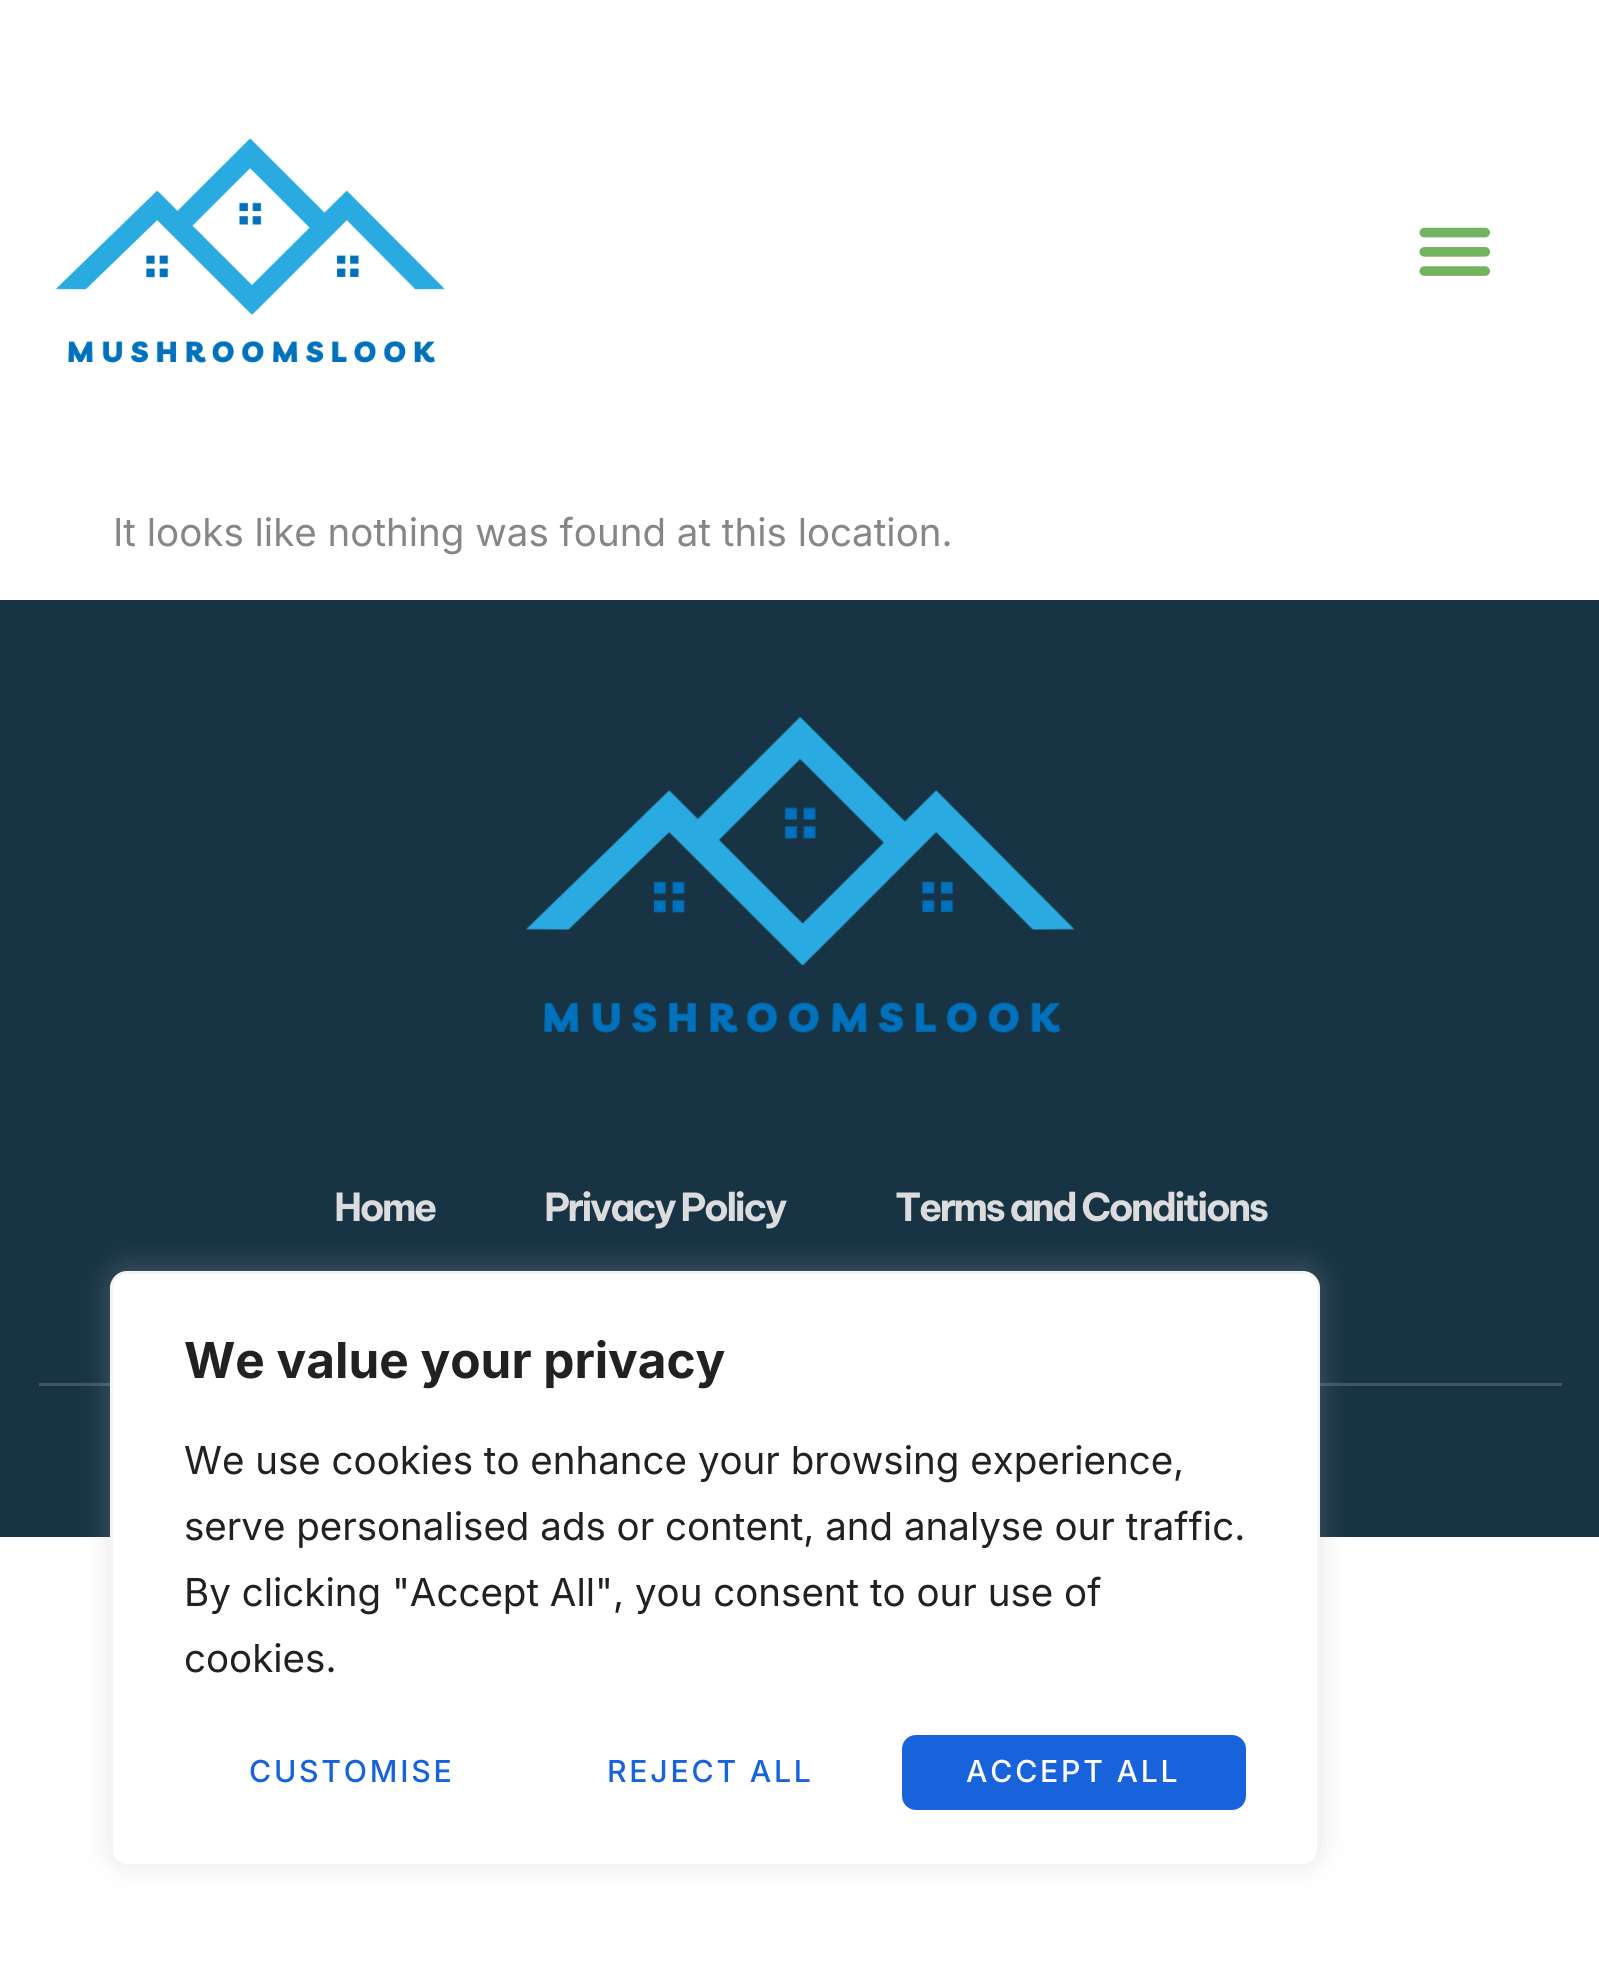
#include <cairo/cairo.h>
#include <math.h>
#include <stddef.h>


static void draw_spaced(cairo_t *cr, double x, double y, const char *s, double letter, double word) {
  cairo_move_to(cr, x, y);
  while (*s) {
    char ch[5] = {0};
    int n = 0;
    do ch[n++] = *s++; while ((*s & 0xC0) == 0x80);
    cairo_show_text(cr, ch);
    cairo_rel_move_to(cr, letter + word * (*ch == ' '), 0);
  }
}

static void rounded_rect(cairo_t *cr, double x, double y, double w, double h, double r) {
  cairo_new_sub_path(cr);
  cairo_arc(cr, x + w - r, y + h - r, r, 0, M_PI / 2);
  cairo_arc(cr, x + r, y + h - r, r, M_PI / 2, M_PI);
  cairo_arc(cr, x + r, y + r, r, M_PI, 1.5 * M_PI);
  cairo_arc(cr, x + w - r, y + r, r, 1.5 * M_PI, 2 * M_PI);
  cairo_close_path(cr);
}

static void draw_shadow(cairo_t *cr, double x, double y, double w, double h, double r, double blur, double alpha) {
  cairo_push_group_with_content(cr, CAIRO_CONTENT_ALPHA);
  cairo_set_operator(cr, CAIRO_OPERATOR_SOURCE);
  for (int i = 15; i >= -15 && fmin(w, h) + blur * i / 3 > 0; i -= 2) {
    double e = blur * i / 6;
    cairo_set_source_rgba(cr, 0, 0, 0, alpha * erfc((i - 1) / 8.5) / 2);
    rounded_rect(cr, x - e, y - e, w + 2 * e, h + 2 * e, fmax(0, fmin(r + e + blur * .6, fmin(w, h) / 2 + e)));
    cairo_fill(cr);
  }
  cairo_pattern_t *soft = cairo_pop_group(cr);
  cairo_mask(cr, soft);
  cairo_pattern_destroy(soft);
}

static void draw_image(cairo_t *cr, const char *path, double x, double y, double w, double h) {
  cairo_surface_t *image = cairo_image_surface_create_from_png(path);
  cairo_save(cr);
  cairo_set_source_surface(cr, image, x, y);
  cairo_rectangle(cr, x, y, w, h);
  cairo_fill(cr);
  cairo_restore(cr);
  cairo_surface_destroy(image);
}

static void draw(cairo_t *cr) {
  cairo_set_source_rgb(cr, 1, 1, 1);
  cairo_paint(cr);
  draw_image(cr, "images/1.png", 55, 138, 390, 225);
  draw_image(cr, "images/2.png", 1419, 227, 71, 49);
  cairo_set_source_rgb(cr, 24 / 255.0, 52 / 255.0, 68 / 255.0);
  cairo_rectangle(cr, 0, 600, 1599, 937);
  cairo_fill(cr);
  cairo_set_source_rgb(cr, 63 / 255.0, 87 / 255.0, 100 / 255.0);
  cairo_rectangle(cr, 39, 1383, 1523, 3);
  cairo_fill(cr);
  draw_image(cr, "images/3.png", 526, 717, 549, 316);
  cairo_set_source_rgb(cr, 172 / 255.0, 171 / 255.0, 171 / 255.0);
  draw_shadow(cr, 110, 1268, 1210, 597, 17, 14, 0.3);
  cairo_set_source_rgb(cr, 1, 1, 1);
  rounded_rect(cr, 111.5, 1272.5, 1207, 593, 15.5);
  cairo_fill_preserve(cr);
  cairo_set_source_rgb(cr, 244 / 255.0, 244 / 255.0, 244 / 255.0);
  cairo_set_line_width(cr, 3);
  cairo_stroke(cr);
  cairo_set_source_rgb(cr, 24 / 255.0, 99 / 255.0, 220 / 255.0);
  rounded_rect(cr, 902, 1735, 344, 75, 14);
  cairo_fill(cr);
  cairo_select_font_face(cr, "Inter", CAIRO_FONT_SLANT_NORMAL, CAIRO_FONT_WEIGHT_NORMAL);
  cairo_set_font_size(cr, 38.5);
  cairo_set_source_rgb(cr, 134 / 255.0, 134 / 255.0, 134 / 255.0);
  cairo_move_to(cr, 113, 546);
  cairo_show_text(cr, "It looks like nothing was found at this location.");
  cairo_select_font_face(cr, "Be Vietnam Pro", CAIRO_FONT_SLANT_NORMAL, CAIRO_FONT_WEIGHT_BOLD);
  cairo_set_source_rgb(cr, 220 / 255.0, 220 / 255.0, 222 / 255.0);
  draw_spaced(cr, 334, 1221, "Home", -2.75, 0);
  draw_spaced(cr, 544, 1221, "Privacy Policy", -2.75, 0);
  draw_spaced(cr, 895, 1221, "Terms and Conditions", -2.75, 0);
  cairo_select_font_face(cr, "Inter", CAIRO_FONT_SLANT_NORMAL, CAIRO_FONT_WEIGHT_BOLD);
  cairo_set_font_size(cr, 49.5);
  cairo_set_source_rgb(cr, 33 / 255.0, 33 / 255.0, 33 / 255.0);
  cairo_move_to(cr, 184, 1378);
  cairo_show_text(cr, "We value your privacy");
  cairo_select_font_face(cr, "Inter", CAIRO_FONT_SLANT_NORMAL, CAIRO_FONT_WEIGHT_NORMAL);
  cairo_set_font_size(cr, 38.5);
  cairo_move_to(cr, 184, 1474);
  cairo_show_text(cr, "We use cookies to enhance your browsing experience,");
  cairo_move_to(cr, 184, 1540);
  cairo_show_text(cr, "serve personalised ads or content, and analyse our traffic.");
  cairo_move_to(cr, 184, 1606);
  cairo_show_text(cr, "By clicking \"Accept All\", you consent to our use of");
  cairo_move_to(cr, 184, 1672);
  cairo_show_text(cr, "cookies.");
  cairo_select_font_face(cr, "Inter Medium", CAIRO_FONT_SLANT_NORMAL, CAIRO_FONT_WEIGHT_NORMAL);
  cairo_set_font_size(cr, 30.25);
  cairo_set_source_rgb(cr, 24 / 255.0, 99 / 255.0, 220 / 255.0);
  draw_spaced(cr, 249, 1782, "CUSTOMISE", 2.75, 0);
  draw_spaced(cr, 607, 1782, "REJECT ALL", 2.75, 0);
  cairo_set_source_rgb(cr, 1, 1, 1);
  draw_spaced(cr, 966, 1782, "ACCEPT ALL", 2.75, 0);
}

int main(void) {
  cairo_surface_t *surface = cairo_image_surface_create(CAIRO_FORMAT_RGB24, 1599, 1977);
  cairo_t *cr = cairo_create(surface);
  cairo_font_options_t *options = cairo_font_options_create();
  cairo_font_options_set_hint_metrics(options, CAIRO_HINT_METRICS_OFF);
  cairo_font_options_set_hint_style(options, CAIRO_HINT_STYLE_NONE);
  cairo_set_font_options(cr, options);
  cairo_set_miter_limit(cr, 4);
  draw(cr);
  cairo_surface_write_to_png(surface, "out.png");
  cairo_font_options_destroy(options);
  cairo_destroy(cr);
  cairo_surface_destroy(surface);
  return 0;
}
